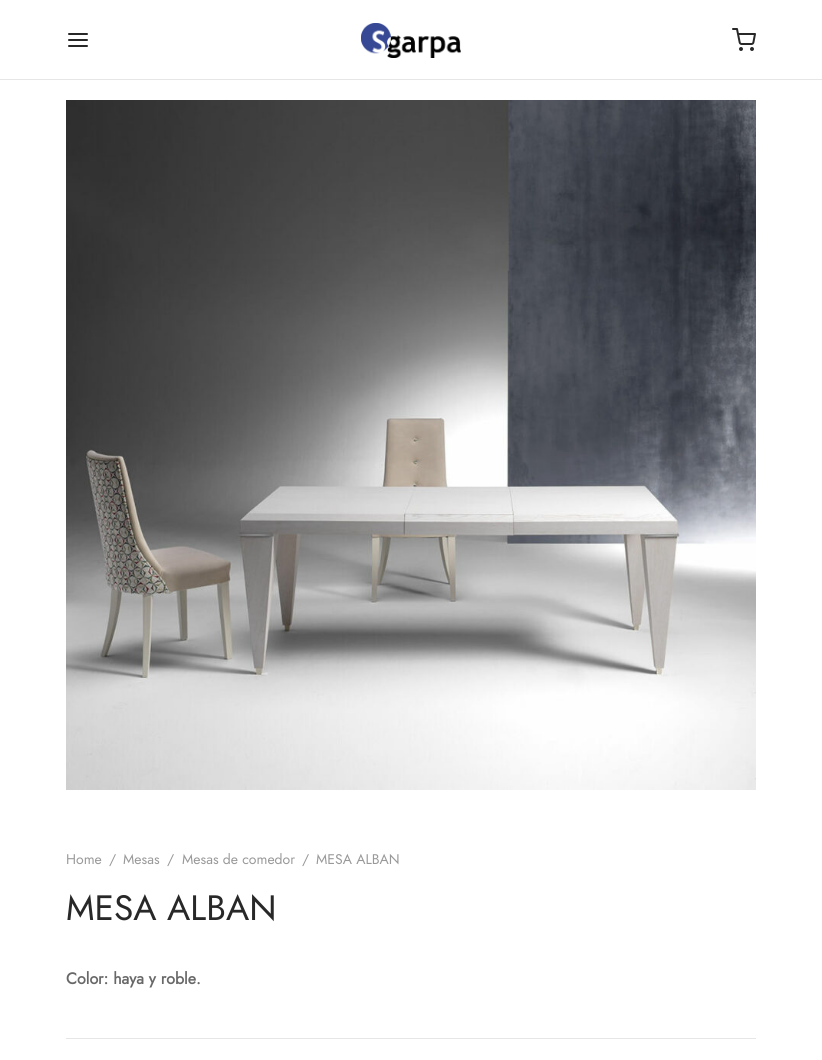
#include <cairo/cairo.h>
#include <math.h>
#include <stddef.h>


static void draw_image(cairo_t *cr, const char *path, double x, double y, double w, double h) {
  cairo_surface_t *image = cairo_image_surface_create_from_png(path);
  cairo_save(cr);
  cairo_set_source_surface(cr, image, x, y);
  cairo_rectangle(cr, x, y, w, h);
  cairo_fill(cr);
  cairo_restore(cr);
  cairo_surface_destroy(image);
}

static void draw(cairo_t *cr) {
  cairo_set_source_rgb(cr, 1, 1, 1);
  cairo_paint(cr);
  cairo_new_path(cr);
  cairo_move_to(cr, 69, 40);
  cairo_line_to(cr, 87, 40);
  cairo_move_to(cr, 69, 34);
  cairo_line_to(cr, 87, 34);
  cairo_move_to(cr, 69, 46);
  cairo_line_to(cr, 87, 46);
  cairo_set_source_rgb(cr, 40 / 255.0, 40 / 255.0, 40 / 255.0);
  cairo_set_line_cap(cr, CAIRO_LINE_CAP_ROUND);
  cairo_set_line_join(cr, CAIRO_LINE_JOIN_ROUND);
  cairo_stroke(cr);
  draw_image(cr, "images/1.png", 361, 23, 100, 35);
  draw_image(cr, "images/2.png", 732, 28, 24, 23);
  cairo_set_source_rgb(cr, 230 / 255.0, 230 / 255.0, 230 / 255.0);
  cairo_rectangle(cr, 0, 79, 822, 1);
  cairo_fill(cr);
  draw_image(cr, "images/3.png", 66, 100, 690, 690);
  cairo_rectangle(cr, 66, 1038, 690, 1);
  cairo_fill(cr);
  cairo_select_font_face(cr, "Jost", CAIRO_FONT_SLANT_NORMAL, CAIRO_FONT_WEIGHT_NORMAL);
  cairo_set_font_size(cr, 14);
  cairo_set_source_rgb(cr, 153 / 255.0, 153 / 255.0, 153 / 255.0);
  cairo_move_to(cr, 66, 864);
  cairo_show_text(cr, "Home");
  cairo_move_to(cr, 109, 864);
  cairo_show_text(cr, "/");
  cairo_move_to(cr, 123, 864);
  cairo_show_text(cr, "Mesas");
  cairo_move_to(cr, 167, 864);
  cairo_show_text(cr, "/");
  cairo_move_to(cr, 182, 864);
  cairo_show_text(cr, "Mesas de comedor");
  cairo_move_to(cr, 302, 864);
  cairo_show_text(cr, "/");
  cairo_move_to(cr, 316, 864);
  cairo_show_text(cr, "MESA ALBAN");
  cairo_set_font_size(cr, 35.25);
  cairo_set_source_rgb(cr, 40 / 255.0, 40 / 255.0, 40 / 255.0);
  cairo_move_to(cr, 66, 920);
  cairo_show_text(cr, "MESA ALBAN");
  cairo_select_font_face(cr, "Jost", CAIRO_FONT_SLANT_NORMAL, CAIRO_FONT_WEIGHT_BOLD);
  cairo_set_font_size(cr, 16);
  cairo_set_source_rgb(cr, 104 / 255.0, 104 / 255.0, 104 / 255.0);
  cairo_move_to(cr, 66, 984);
  cairo_show_text(cr, "Color: haya y roble.");
}

int main(void) {
  cairo_surface_t *surface = cairo_image_surface_create(CAIRO_FORMAT_RGB24, 822, 1060);
  cairo_t *cr = cairo_create(surface);
  cairo_font_options_t *options = cairo_font_options_create();
  cairo_font_options_set_hint_metrics(options, CAIRO_HINT_METRICS_OFF);
  cairo_font_options_set_hint_style(options, CAIRO_HINT_STYLE_NONE);
  cairo_set_font_options(cr, options);
  cairo_set_miter_limit(cr, 4);
  draw(cr);
  cairo_surface_write_to_png(surface, "out.png");
  cairo_font_options_destroy(options);
  cairo_destroy(cr);
  cairo_surface_destroy(surface);
  return 0;
}
